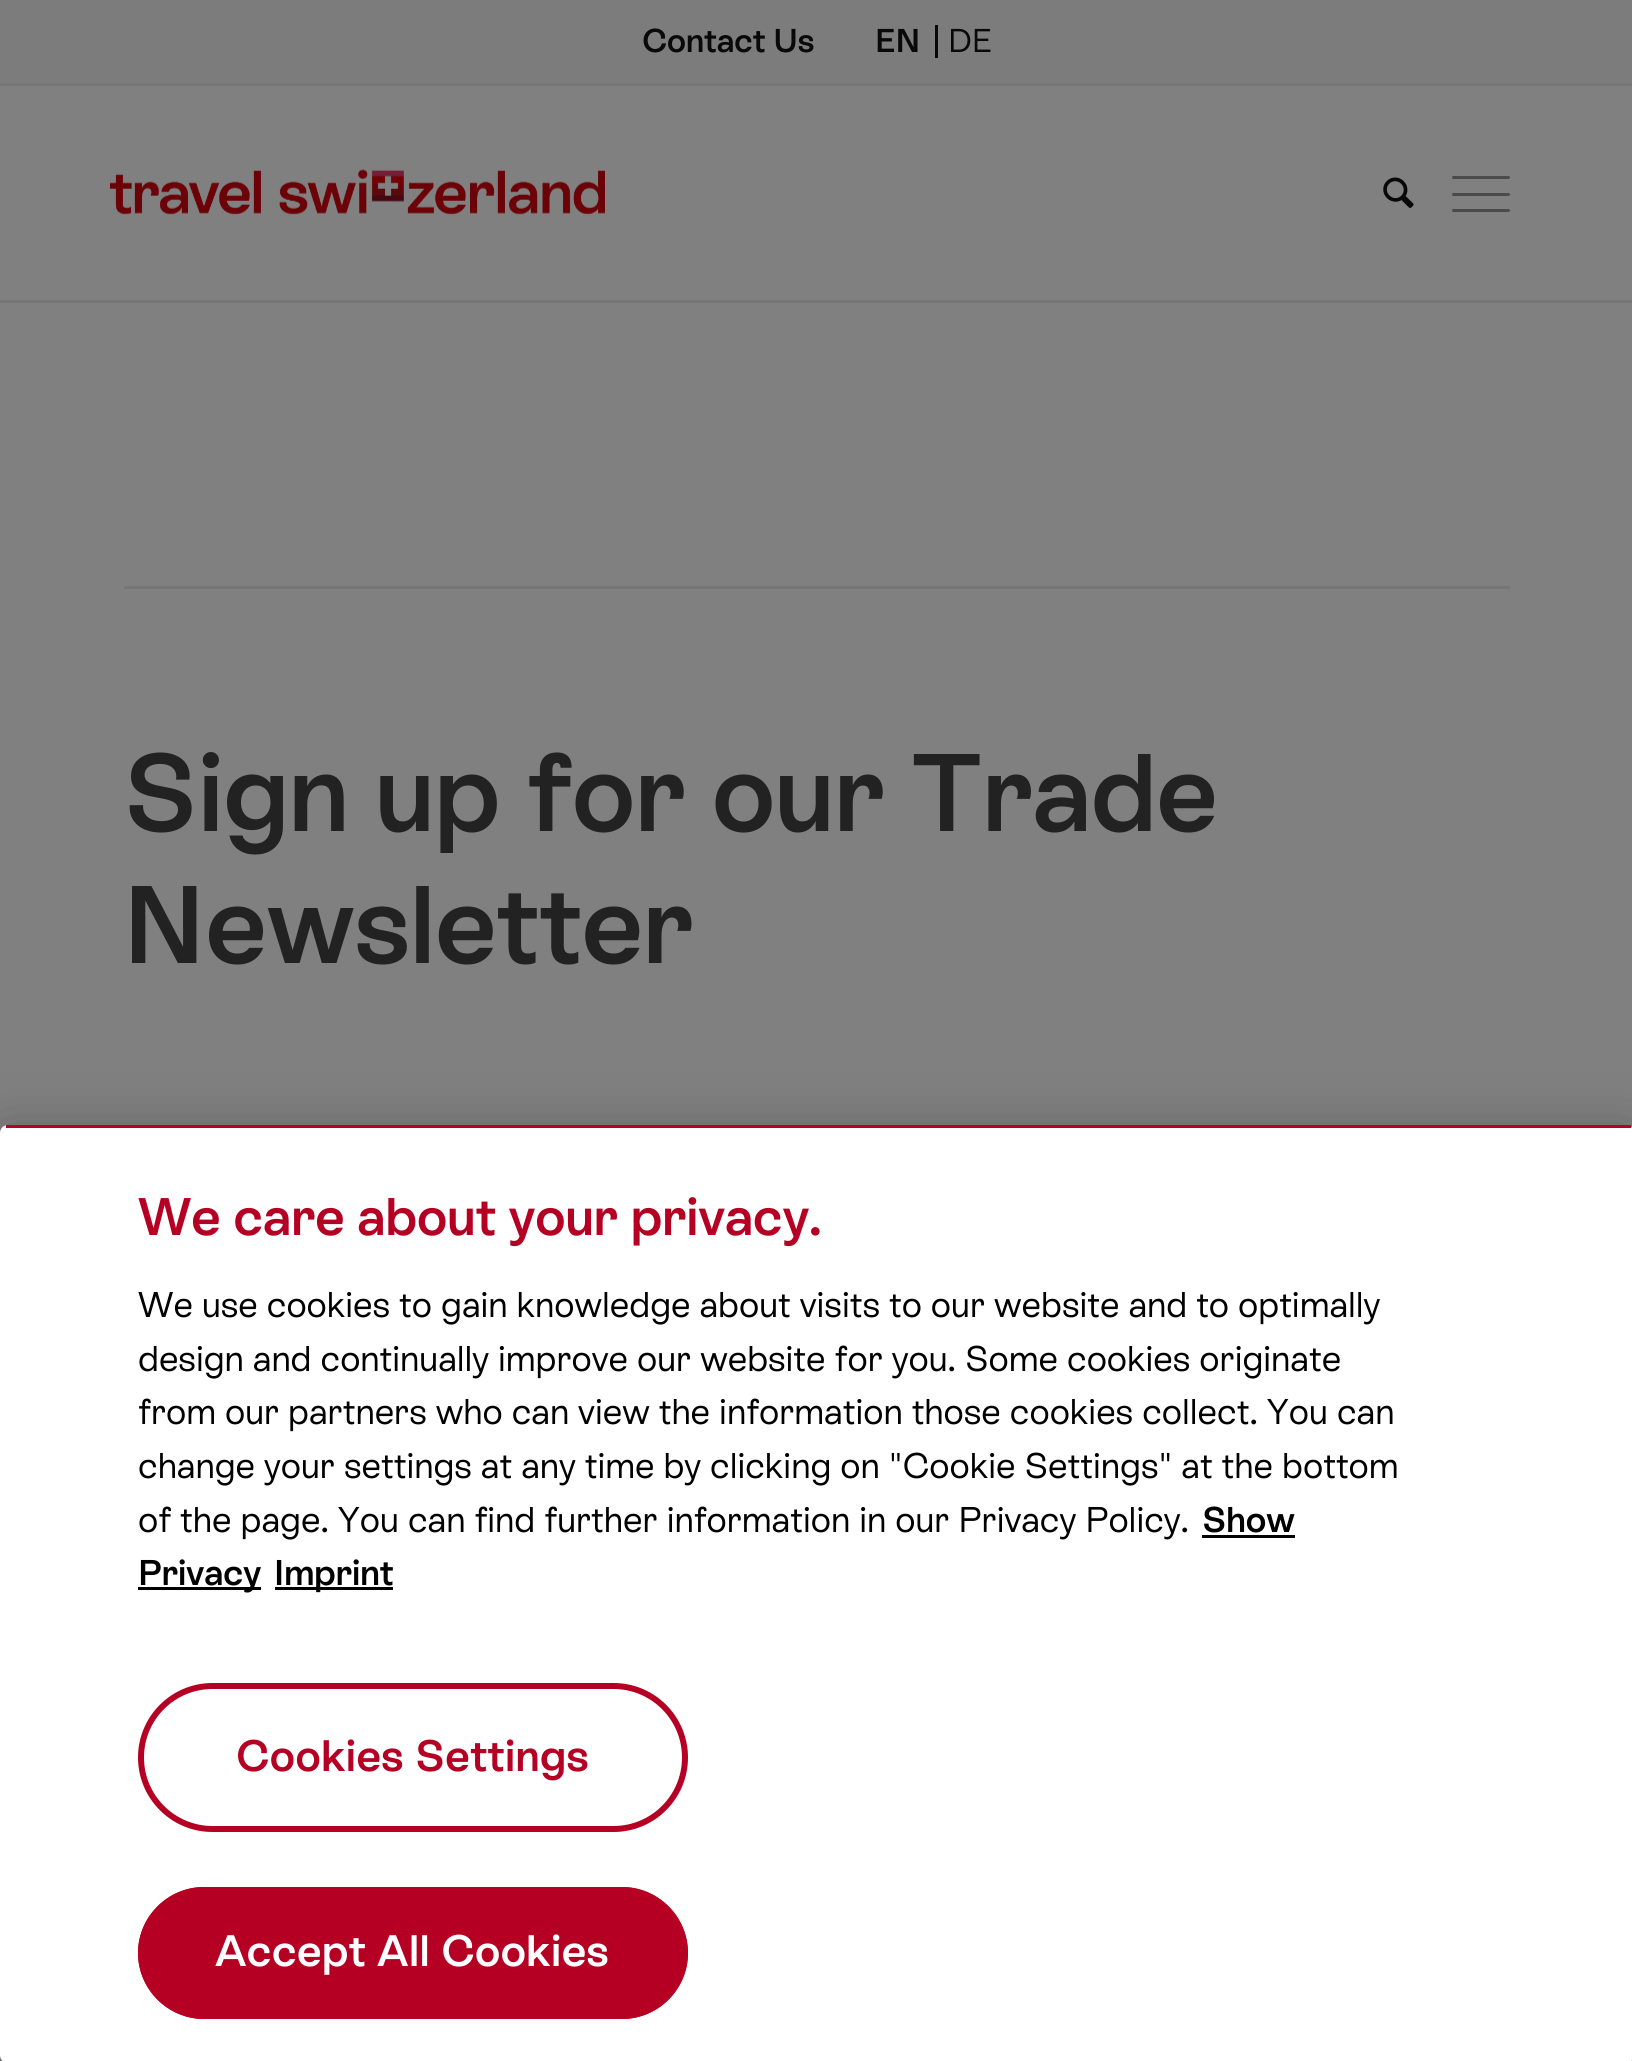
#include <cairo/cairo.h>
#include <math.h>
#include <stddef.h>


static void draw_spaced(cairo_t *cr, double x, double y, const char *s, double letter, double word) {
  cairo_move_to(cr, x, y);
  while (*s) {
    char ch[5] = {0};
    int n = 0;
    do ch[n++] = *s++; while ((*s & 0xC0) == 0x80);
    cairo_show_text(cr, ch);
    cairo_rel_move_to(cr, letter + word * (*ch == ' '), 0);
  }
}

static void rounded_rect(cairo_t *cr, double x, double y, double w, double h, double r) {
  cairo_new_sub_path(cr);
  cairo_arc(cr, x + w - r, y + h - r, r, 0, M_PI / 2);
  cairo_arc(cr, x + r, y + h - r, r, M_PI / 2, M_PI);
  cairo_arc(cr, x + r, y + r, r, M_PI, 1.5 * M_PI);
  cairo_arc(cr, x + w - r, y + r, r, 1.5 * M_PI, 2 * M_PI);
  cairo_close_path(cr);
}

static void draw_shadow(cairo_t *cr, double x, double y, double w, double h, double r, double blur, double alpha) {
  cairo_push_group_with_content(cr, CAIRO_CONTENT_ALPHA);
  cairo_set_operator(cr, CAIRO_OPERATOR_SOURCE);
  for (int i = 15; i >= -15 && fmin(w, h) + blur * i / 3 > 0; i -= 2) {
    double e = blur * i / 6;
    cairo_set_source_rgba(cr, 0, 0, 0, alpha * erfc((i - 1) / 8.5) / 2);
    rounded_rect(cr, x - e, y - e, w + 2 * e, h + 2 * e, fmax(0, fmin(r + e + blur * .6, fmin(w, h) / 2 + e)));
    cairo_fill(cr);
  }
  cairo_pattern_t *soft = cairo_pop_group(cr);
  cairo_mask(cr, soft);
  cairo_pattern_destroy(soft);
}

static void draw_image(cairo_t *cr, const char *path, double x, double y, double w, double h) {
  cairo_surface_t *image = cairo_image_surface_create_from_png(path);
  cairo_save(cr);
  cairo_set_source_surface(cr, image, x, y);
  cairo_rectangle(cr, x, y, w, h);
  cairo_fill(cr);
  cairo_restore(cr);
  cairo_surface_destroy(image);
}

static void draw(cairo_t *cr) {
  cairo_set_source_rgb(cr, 128 / 255.0, 128 / 255.0, 128 / 255.0);
  cairo_paint(cr);
  cairo_set_source_rgb(cr, 124 / 255.0, 124 / 255.0, 124 / 255.0);
  cairo_rectangle(cr, 0, 0, 1632, 83);
  cairo_fill(cr);
  cairo_set_source_rgb(cr, 118 / 255.0, 118 / 255.0, 118 / 255.0);
  cairo_rectangle(cr, 0, 83, 1632, 3);
  cairo_fill(cr);
  cairo_set_source_rgb(cr, 9 / 255.0, 9 / 255.0, 9 / 255.0);
  cairo_rectangle(cr, 935, 25, 3, 33);
  cairo_fill(cr);
  cairo_set_source_rgb(cr, 118 / 255.0, 118 / 255.0, 118 / 255.0);
  cairo_rectangle(cr, 0, 300, 1632, 3);
  cairo_fill(cr);
  draw_image(cr, "images/1.png", 110, 169, 495, 46);
  draw_image(cr, "images/2.png", 1383, 177, 31, 31);
  cairo_set_source_rgb(cr, 75 / 255.0, 75 / 255.0, 75 / 255.0);
  rounded_rect(cr, 1452, 193, 58, 3, 1.5);
  cairo_fill(cr);
  rounded_rect(cr, 1452, 176, 58, 3, 1.5);
  cairo_fill(cr);
  rounded_rect(cr, 1452, 209, 58, 3, 1.5);
  cairo_fill(cr);
  cairo_set_source_rgb(cr, 118 / 255.0, 118 / 255.0, 118 / 255.0);
  cairo_rectangle(cr, 124, 586, 1386, 3);
  cairo_fill(cr);
  cairo_set_source_rgb(cr, 0, 0, 0);
  draw_shadow(cr, 0, 1125, 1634, 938, 8, 25, 0.2);
  cairo_set_source_rgb(cr, 1, 1, 1);
  rounded_rect(cr, 0, 1125, 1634, 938, 8);
  cairo_fill(cr);
  cairo_set_source_rgb(cr, 181 / 255.0, 0, 36 / 255.0);
  cairo_rectangle(cr, 6, 1125, 1625, 3);
  cairo_fill(cr);
  cairo_set_source_rgb(cr, 0, 0, 0);
  cairo_rectangle(cr, 1202, 1535, 93, 3);
  cairo_fill(cr);
  cairo_rectangle(cr, 138, 1587, 123, 3);
  cairo_fill(cr);
  cairo_rectangle(cr, 275, 1587, 118, 3);
  cairo_fill(cr);
  rounded_rect(cr, 141, 1686, 544, 143, 71.5);
  cairo_set_source_rgb(cr, 181 / 255.0, 0, 36 / 255.0);
  cairo_set_line_width(cr, 6);
  cairo_stroke(cr);
  cairo_set_source_rgb(cr, 198 / 255.0, 0, 24 / 255.0);
  rounded_rect(cr, 138, 1887, 550, 132, 66);
  cairo_fill(cr);
  cairo_set_source_rgb(cr, 181 / 255.0, 0, 36 / 255.0);
  cairo_new_path(cr);
  cairo_move_to(cr, 204, 1887);
  cairo_curve_to(cr, 168, 1887, 138, 1917, 138, 1953);
  cairo_curve_to(cr, 138, 1989, 168, 2019, 204, 2019);
  cairo_line_to(cr, 622, 2019);
  cairo_curve_to(cr, 658, 2019, 688, 1989, 688, 1953);
  cairo_curve_to(cr, 688, 1917, 658, 1887, 622, 1887);
  cairo_close_path(cr);
  cairo_fill(cr);
  cairo_select_font_face(cr, "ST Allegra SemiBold", CAIRO_FONT_SLANT_NORMAL, CAIRO_FONT_WEIGHT_NORMAL);
  cairo_set_font_size(cr, 33);
  cairo_set_source_rgb(cr, 9 / 255.0, 9 / 255.0, 9 / 255.0);
  cairo_move_to(cr, 642, 52);
  cairo_show_text(cr, "Contact Us");
  cairo_move_to(cr, 875, 52);
  cairo_show_text(cr, "EN");
  cairo_select_font_face(cr, "ST Allegra", CAIRO_FONT_SLANT_NORMAL, CAIRO_FONT_WEIGHT_NORMAL);
  cairo_move_to(cr, 948, 52);
  cairo_show_text(cr, "DE");
  cairo_select_font_face(cr, "ST Allegra SemiBold", CAIRO_FONT_SLANT_NORMAL, CAIRO_FONT_WEIGHT_NORMAL);
  cairo_set_font_size(cr, 110);
  cairo_set_source_rgb(cr, 34 / 255.0, 34 / 255.0, 34 / 255.0);
  cairo_move_to(cr, 123, 831);
  cairo_show_text(cr, "Sign up for our Trade");
  cairo_move_to(cr, 123, 963);
  cairo_show_text(cr, "Newsletter");
  cairo_set_font_size(cr, 52.75);
  cairo_set_source_rgb(cr, 181 / 255.0, 0, 36 / 255.0);
  cairo_move_to(cr, 138, 1235);
  cairo_show_text(cr, "We care about your privacy.");
  cairo_select_font_face(cr, "ST Allegra", CAIRO_FONT_SLANT_NORMAL, CAIRO_FONT_WEIGHT_NORMAL);
  cairo_set_font_size(cr, 35.75);
  cairo_set_source_rgb(cr, 0, 0, 0);
  cairo_move_to(cr, 138, 1317);
  cairo_show_text(cr, "We use cookies to gain knowledge about visits to our website and to optimally");
  cairo_move_to(cr, 138, 1371);
  cairo_show_text(cr, "design and continually improve our website for you. Some cookies originate");
  cairo_move_to(cr, 138, 1424);
  cairo_show_text(cr, "from our partners who can view the information those cookies collect. You can");
  cairo_move_to(cr, 138, 1478);
  cairo_show_text(cr, "change your settings at any time by clicking on \"Cookie Settings\" at the bottom");
  cairo_move_to(cr, 138, 1532);
  cairo_show_text(cr, "of the page. You can find further information in our Privacy Policy.");
  cairo_select_font_face(cr, "ST Allegra SemiBold", CAIRO_FONT_SLANT_NORMAL, CAIRO_FONT_WEIGHT_NORMAL);
  cairo_move_to(cr, 1202, 1532);
  cairo_show_text(cr, "Show");
  cairo_move_to(cr, 138, 1585);
  cairo_show_text(cr, "Privacy");
  cairo_move_to(cr, 274, 1585);
  cairo_show_text(cr, "Imprint");
  cairo_set_font_size(cr, 44);
  cairo_set_source_rgb(cr, 181 / 255.0, 0, 36 / 255.0);
  draw_spaced(cr, 236, 1771, "Cookies Settings", 0.4, 0);
  cairo_set_source_rgb(cr, 1, 1, 1);
  draw_spaced(cr, 215, 1966, "Accept All Cookies", 0.4, 0);
}

int main(void) {
  cairo_surface_t *surface = cairo_image_surface_create(CAIRO_FORMAT_RGB24, 1632, 2061);
  cairo_t *cr = cairo_create(surface);
  cairo_font_options_t *options = cairo_font_options_create();
  cairo_font_options_set_hint_metrics(options, CAIRO_HINT_METRICS_OFF);
  cairo_font_options_set_hint_style(options, CAIRO_HINT_STYLE_NONE);
  cairo_set_font_options(cr, options);
  cairo_set_miter_limit(cr, 4);
  draw(cr);
  cairo_surface_write_to_png(surface, "out.png");
  cairo_font_options_destroy(options);
  cairo_destroy(cr);
  cairo_surface_destroy(surface);
  return 0;
}
